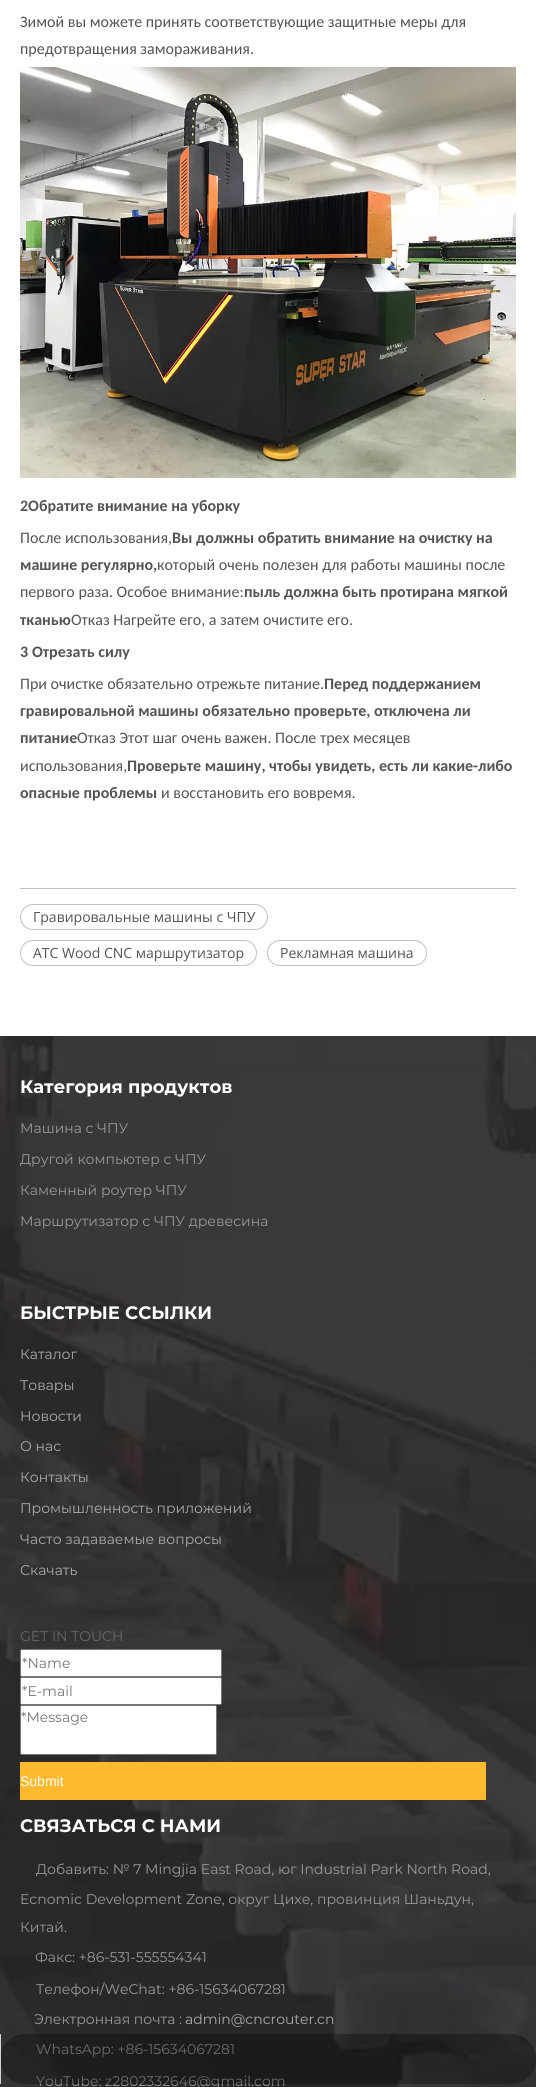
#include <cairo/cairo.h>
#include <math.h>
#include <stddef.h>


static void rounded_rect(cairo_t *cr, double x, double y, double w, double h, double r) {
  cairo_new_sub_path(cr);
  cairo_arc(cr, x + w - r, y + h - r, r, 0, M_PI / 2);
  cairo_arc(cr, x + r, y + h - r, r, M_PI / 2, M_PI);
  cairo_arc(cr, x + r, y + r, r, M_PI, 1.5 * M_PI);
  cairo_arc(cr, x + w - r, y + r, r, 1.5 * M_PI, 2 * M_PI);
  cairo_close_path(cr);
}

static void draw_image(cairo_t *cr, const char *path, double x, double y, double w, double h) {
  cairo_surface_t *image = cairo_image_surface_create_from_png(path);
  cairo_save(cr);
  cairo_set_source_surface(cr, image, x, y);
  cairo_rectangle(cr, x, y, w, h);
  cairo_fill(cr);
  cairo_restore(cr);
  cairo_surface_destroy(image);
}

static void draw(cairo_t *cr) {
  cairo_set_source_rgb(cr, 1, 1, 1);
  cairo_paint(cr);
  draw_image(cr, "images/1.png", 20, 67, 496, 411);
  cairo_set_source_rgb(cr, 192 / 255.0, 192 / 255.0, 192 / 255.0);
  cairo_rectangle(cr, 20, 888, 496, 1);
  cairo_fill(cr);
  rounded_rect(cr, 20.5, 904.5, 247, 25, 12.5);
  cairo_set_line_width(cr, 1);
  cairo_stroke(cr);
  rounded_rect(cr, 20.5, 940.5, 236, 25, 12.5);
  cairo_stroke(cr);
  rounded_rect(cr, 267.5, 940.5, 159, 25, 12.5);
  cairo_stroke(cr);
  draw_image(cr, "images/2.png", 0, 1036, 536, 1051);
  cairo_set_source_rgb(cr, 1, 1, 1);
  rounded_rect(cr, 20.5, 1649.5, 201, 27, 1.5);
  cairo_fill_preserve(cr);
  cairo_set_source_rgb(cr, 118 / 255.0, 118 / 255.0, 118 / 255.0);
  cairo_stroke(cr);
  cairo_set_source_rgb(cr, 1, 1, 1);
  rounded_rect(cr, 20.5, 1677.5, 201, 27, 1.5);
  cairo_fill_preserve(cr);
  cairo_set_source_rgb(cr, 118 / 255.0, 118 / 255.0, 118 / 255.0);
  cairo_stroke(cr);
  cairo_set_source_rgb(cr, 1, 1, 1);
  rounded_rect(cr, 20.5, 1705.5, 196, 49, 1.5);
  cairo_fill_preserve(cr);
  cairo_set_source_rgb(cr, 118 / 255.0, 118 / 255.0, 118 / 255.0);
  cairo_stroke(cr);
  cairo_set_source_rgb(cr, 254 / 255.0, 185 / 255.0, 47 / 255.0);
  cairo_rectangle(cr, 20, 1762, 466, 38);
  cairo_fill(cr);
  cairo_select_font_face(cr, "Carlito", CAIRO_FONT_SLANT_NORMAL, CAIRO_FONT_WEIGHT_NORMAL);
  cairo_set_font_size(cr, 16);
  cairo_set_source_rgb(cr, 84 / 255.0, 84 / 255.0, 84 / 255.0);
  cairo_move_to(cr, 20, 27);
  cairo_show_text(cr, "Зимой вы можете принять соответствующие защитные меры для");
  cairo_move_to(cr, 20, 54);
  cairo_show_text(cr, "предотвращения замораживания.");
  cairo_select_font_face(cr, "Carlito", CAIRO_FONT_SLANT_NORMAL, CAIRO_FONT_WEIGHT_BOLD);
  cairo_move_to(cr, 20, 511);
  cairo_show_text(cr, "2Обратите внимание на уборку");
  cairo_select_font_face(cr, "Carlito", CAIRO_FONT_SLANT_NORMAL, CAIRO_FONT_WEIGHT_NORMAL);
  cairo_move_to(cr, 20, 543);
  cairo_show_text(cr, "После использования,");
  cairo_select_font_face(cr, "Carlito", CAIRO_FONT_SLANT_NORMAL, CAIRO_FONT_WEIGHT_BOLD);
  cairo_move_to(cr, 172, 543);
  cairo_show_text(cr, "Вы должны обратить внимание на очистку на");
  cairo_move_to(cr, 20, 570);
  cairo_show_text(cr, "машине регулярно,");
  cairo_select_font_face(cr, "Carlito", CAIRO_FONT_SLANT_NORMAL, CAIRO_FONT_WEIGHT_NORMAL);
  cairo_move_to(cr, 157, 570);
  cairo_show_text(cr, "который очень полезен для работы машины после");
  cairo_move_to(cr, 20, 597);
  cairo_show_text(cr, "первого раза. Особое внимание:");
  cairo_select_font_face(cr, "Carlito", CAIRO_FONT_SLANT_NORMAL, CAIRO_FONT_WEIGHT_BOLD);
  cairo_move_to(cr, 244, 597);
  cairo_show_text(cr, "пыль должна быть протирана мягкой");
  cairo_move_to(cr, 20, 625);
  cairo_show_text(cr, "тканью");
  cairo_select_font_face(cr, "Carlito", CAIRO_FONT_SLANT_NORMAL, CAIRO_FONT_WEIGHT_NORMAL);
  cairo_move_to(cr, 71, 625);
  cairo_show_text(cr, "Отказ Нагрейте его, а затем очистите его.");
  cairo_select_font_face(cr, "Carlito", CAIRO_FONT_SLANT_NORMAL, CAIRO_FONT_WEIGHT_BOLD);
  cairo_move_to(cr, 20, 657);
  cairo_show_text(cr, "3");
  cairo_move_to(cr, 32, 657);
  cairo_show_text(cr, "Отрезать силу");
  cairo_select_font_face(cr, "Carlito", CAIRO_FONT_SLANT_NORMAL, CAIRO_FONT_WEIGHT_NORMAL);
  cairo_move_to(cr, 20, 689);
  cairo_show_text(cr, "При очистке обязательно отрежьте питание.");
  cairo_select_font_face(cr, "Carlito", CAIRO_FONT_SLANT_NORMAL, CAIRO_FONT_WEIGHT_BOLD);
  cairo_move_to(cr, 324, 689);
  cairo_show_text(cr, "Перед поддержанием");
  cairo_move_to(cr, 20, 716);
  cairo_show_text(cr, "гравировальной машины обязательно проверьте, отключена ли");
  cairo_move_to(cr, 20, 743);
  cairo_show_text(cr, "питание");
  cairo_select_font_face(cr, "Carlito", CAIRO_FONT_SLANT_NORMAL, CAIRO_FONT_WEIGHT_NORMAL);
  cairo_move_to(cr, 77, 743);
  cairo_show_text(cr, "Отказ Этот шаг очень важен. После трех месяцев");
  cairo_move_to(cr, 20, 771);
  cairo_show_text(cr, "использования,");
  cairo_select_font_face(cr, "Carlito", CAIRO_FONT_SLANT_NORMAL, CAIRO_FONT_WEIGHT_BOLD);
  cairo_move_to(cr, 127, 771);
  cairo_show_text(cr, "Проверьте машину, чтобы увидеть, есть ли какие-либо");
  cairo_move_to(cr, 20, 798);
  cairo_show_text(cr, "опасные проблемы");
  cairo_select_font_face(cr, "Carlito", CAIRO_FONT_SLANT_NORMAL, CAIRO_FONT_WEIGHT_NORMAL);
  cairo_move_to(cr, 161, 798);
  cairo_show_text(cr, "и восстановить его вовремя.");
  cairo_select_font_face(cr, "Open Sans", CAIRO_FONT_SLANT_NORMAL, CAIRO_FONT_WEIGHT_NORMAL);
  cairo_set_font_size(cr, 14);
  cairo_move_to(cr, 33, 922);
  cairo_show_text(cr, "Гравировальные машины с ЧПУ");
  cairo_move_to(cr, 33, 958);
  cairo_show_text(cr, "ATC Wood CNC маршрутизатор");
  cairo_move_to(cr, 280, 958);
  cairo_show_text(cr, "Рекламная машина");
  cairo_select_font_face(cr, "Montserrat", CAIRO_FONT_SLANT_NORMAL, CAIRO_FONT_WEIGHT_BOLD);
  cairo_set_font_size(cr, 18);
  cairo_set_source_rgb(cr, 1, 1, 1);
  cairo_move_to(cr, 20, 1093);
  cairo_show_text(cr, "Категория продуктов");
  cairo_select_font_face(cr, "Montserrat", CAIRO_FONT_SLANT_NORMAL, CAIRO_FONT_WEIGHT_NORMAL);
  cairo_set_font_size(cr, 14);
  cairo_set_source_rgb(cr, 153 / 255.0, 153 / 255.0, 153 / 255.0);
  cairo_move_to(cr, 20, 1133);
  cairo_show_text(cr, "Машина с ЧПУ");
  cairo_move_to(cr, 20, 1164);
  cairo_show_text(cr, "Другой компьютер с ЧПУ");
  cairo_move_to(cr, 20, 1195);
  cairo_show_text(cr, "Каменный роутер ЧПУ");
  cairo_move_to(cr, 20, 1226);
  cairo_show_text(cr, "Маршрутизатор с ЧПУ древесина");
  cairo_select_font_face(cr, "Montserrat", CAIRO_FONT_SLANT_NORMAL, CAIRO_FONT_WEIGHT_BOLD);
  cairo_set_font_size(cr, 18);
  cairo_set_source_rgb(cr, 1, 1, 1);
  cairo_move_to(cr, 20, 1319);
  cairo_show_text(cr, "БЫСТРЫЕ ССЫЛКИ");
  cairo_select_font_face(cr, "Montserrat", CAIRO_FONT_SLANT_NORMAL, CAIRO_FONT_WEIGHT_NORMAL);
  cairo_set_font_size(cr, 14);
  cairo_set_source_rgb(cr, 170 / 255.0, 170 / 255.0, 170 / 255.0);
  cairo_move_to(cr, 20, 1359);
  cairo_show_text(cr, "Каталог");
  cairo_move_to(cr, 20, 1390);
  cairo_show_text(cr, "Товары");
  cairo_move_to(cr, 20, 1421);
  cairo_show_text(cr, "Новости");
  cairo_move_to(cr, 20, 1451);
  cairo_show_text(cr, "О нас");
  cairo_move_to(cr, 20, 1482);
  cairo_show_text(cr, "Контакты");
  cairo_move_to(cr, 20, 1513);
  cairo_show_text(cr, "Промышленность приложений");
  cairo_move_to(cr, 20, 1544);
  cairo_show_text(cr, "Часто задаваемые вопросы");
  cairo_move_to(cr, 20, 1575);
  cairo_show_text(cr, "Скачать");
  cairo_set_source_rgb(cr, 102 / 255.0, 102 / 255.0, 102 / 255.0);
  cairo_move_to(cr, 20, 1641);
  cairo_show_text(cr, "GET IN TOUCH");
  cairo_set_source_rgb(cr, 117 / 255.0, 117 / 255.0, 117 / 255.0);
  cairo_move_to(cr, 22, 1668);
  cairo_show_text(cr, "*Name");
  cairo_move_to(cr, 22, 1696);
  cairo_show_text(cr, "*E-mail");
  cairo_move_to(cr, 21, 1722);
  cairo_show_text(cr, "*Message");
  cairo_select_font_face(cr, "Liberation Sans", CAIRO_FONT_SLANT_NORMAL, CAIRO_FONT_WEIGHT_NORMAL);
  cairo_set_source_rgb(cr, 1, 1, 1);
  cairo_move_to(cr, 20, 1786);
  cairo_show_text(cr, "Submit");
  cairo_select_font_face(cr, "Montserrat", CAIRO_FONT_SLANT_NORMAL, CAIRO_FONT_WEIGHT_BOLD);
  cairo_set_font_size(cr, 18);
  cairo_move_to(cr, 20, 1832);
  cairo_show_text(cr, "СВЯЗАТЬСЯ С НАМИ");
  cairo_select_font_face(cr, "Montserrat", CAIRO_FONT_SLANT_NORMAL, CAIRO_FONT_WEIGHT_NORMAL);
  cairo_set_font_size(cr, 14);
  cairo_set_source_rgb(cr, 153 / 255.0, 153 / 255.0, 153 / 255.0);
  cairo_move_to(cr, 36, 1874);
  cairo_show_text(cr, "Добавить: № 7 Mingjia East Road, юг Industrial Park North Road,");
  cairo_move_to(cr, 20, 1904);
  cairo_show_text(cr, "Ecnomic Development Zone, округ Цихе, провинция Шаньдун,");
  cairo_move_to(cr, 20, 1932);
  cairo_show_text(cr, "Китай.");
  cairo_move_to(cr, 35, 1962);
  cairo_show_text(cr, "Факс: +86-531-555554341");
  cairo_move_to(cr, 36, 1994);
  cairo_show_text(cr, "Телефон/WeChat: +86-15634067281");
  cairo_move_to(cr, 34, 2024);
  cairo_show_text(cr, "Электронная почта :");
  cairo_set_source_rgb(cr, 170 / 255.0, 170 / 255.0, 170 / 255.0);
  cairo_move_to(cr, 185, 2024);
  cairo_show_text(cr, "admin@cncrouter.cn");
  cairo_set_source_rgb(cr, 153 / 255.0, 153 / 255.0, 153 / 255.0);
  cairo_move_to(cr, 36, 2054);
  cairo_show_text(cr, "WhatsApp: +86-15634067281");
  cairo_move_to(cr, 36, 2086);
  cairo_show_text(cr, "YouTube: z2802332646@gmail.com");
  cairo_set_source_rgba(cr, 0, 0, 0, 0.3);
  rounded_rect(cr, 0, 2034, 536, 50, 25);
  cairo_fill(cr);
  cairo_set_source_rgb(cr, 211 / 255.0, 211 / 255.0, 211 / 255.0);
  cairo_rectangle(cr, 0, 2034, 1, 50);
  cairo_fill(cr);
}

int main(void) {
  cairo_surface_t *surface = cairo_image_surface_create(CAIRO_FORMAT_RGB24, 536, 2087);
  cairo_t *cr = cairo_create(surface);
  cairo_font_options_t *options = cairo_font_options_create();
  cairo_font_options_set_hint_metrics(options, CAIRO_HINT_METRICS_OFF);
  cairo_font_options_set_hint_style(options, CAIRO_HINT_STYLE_NONE);
  cairo_set_font_options(cr, options);
  cairo_set_miter_limit(cr, 4);
  draw(cr);
  cairo_surface_write_to_png(surface, "out.png");
  cairo_font_options_destroy(options);
  cairo_destroy(cr);
  cairo_surface_destroy(surface);
  return 0;
}
